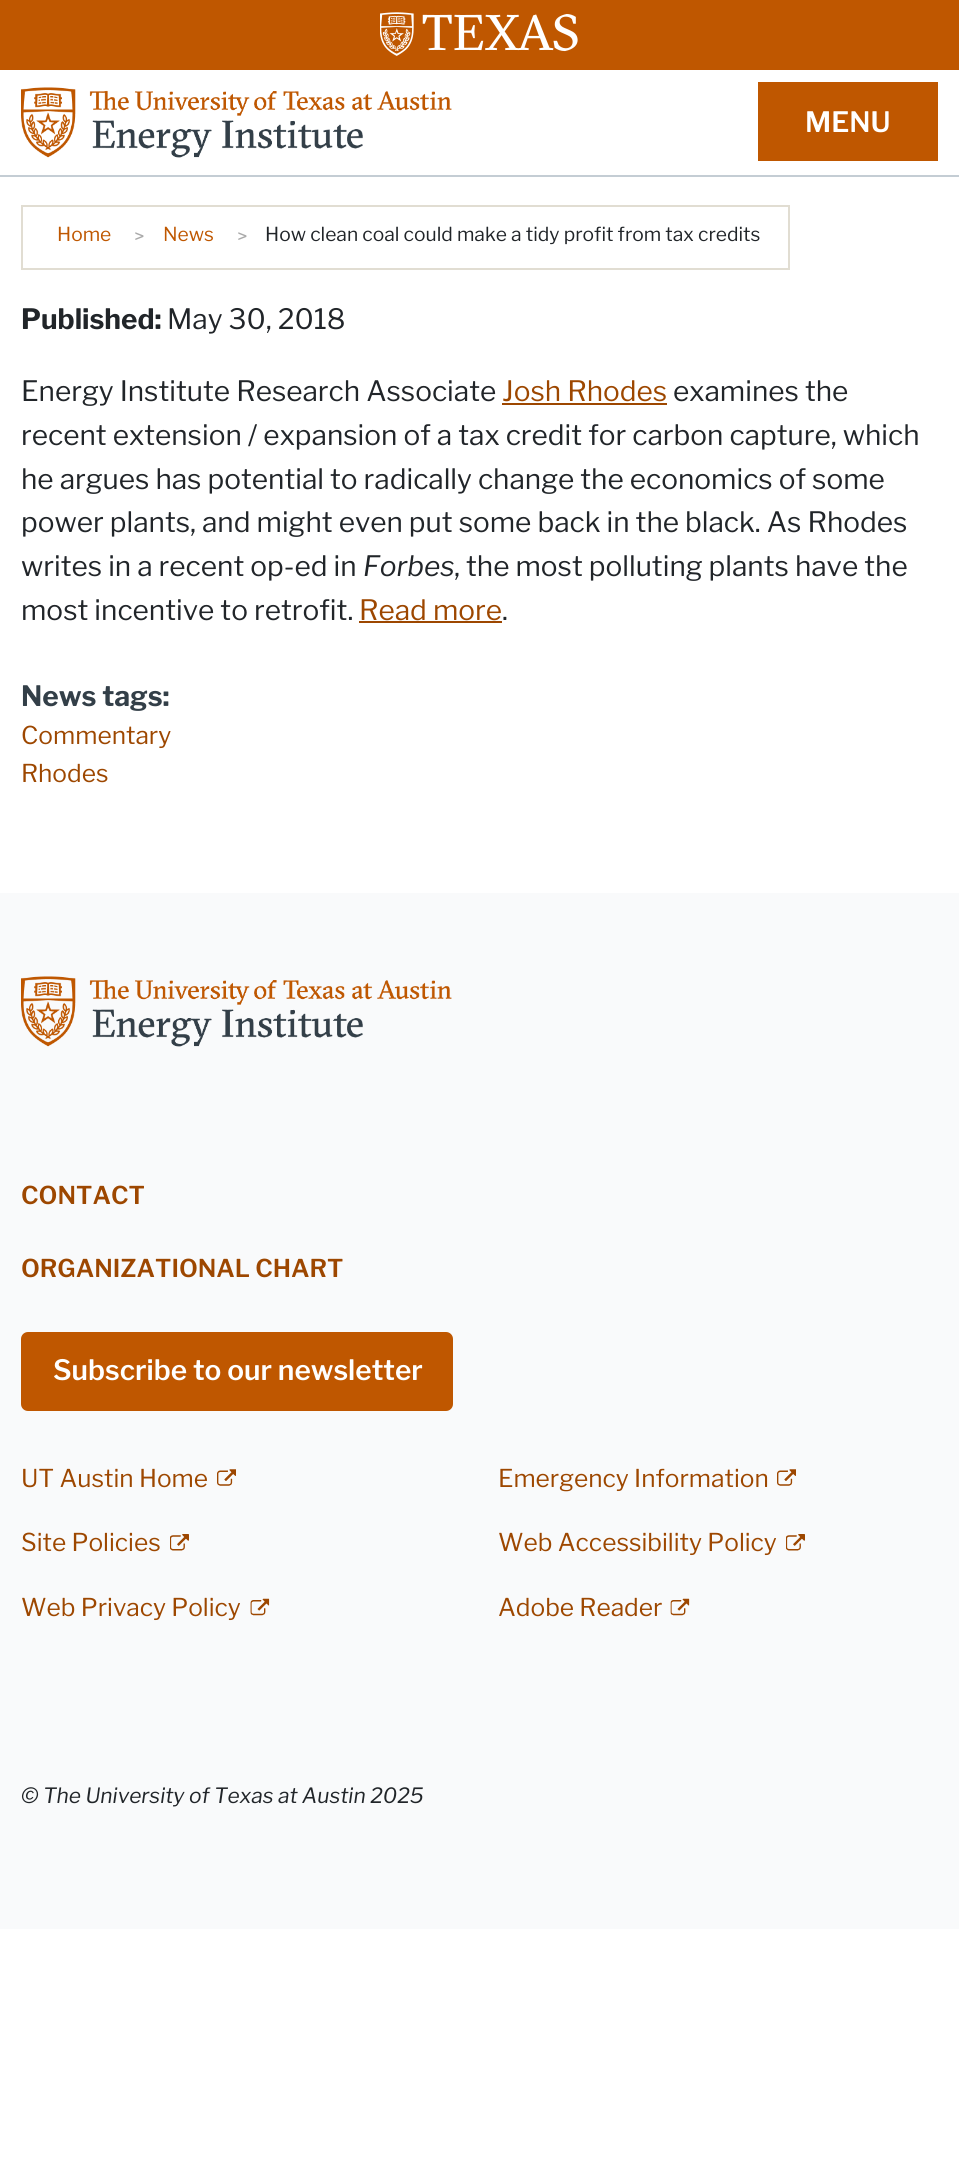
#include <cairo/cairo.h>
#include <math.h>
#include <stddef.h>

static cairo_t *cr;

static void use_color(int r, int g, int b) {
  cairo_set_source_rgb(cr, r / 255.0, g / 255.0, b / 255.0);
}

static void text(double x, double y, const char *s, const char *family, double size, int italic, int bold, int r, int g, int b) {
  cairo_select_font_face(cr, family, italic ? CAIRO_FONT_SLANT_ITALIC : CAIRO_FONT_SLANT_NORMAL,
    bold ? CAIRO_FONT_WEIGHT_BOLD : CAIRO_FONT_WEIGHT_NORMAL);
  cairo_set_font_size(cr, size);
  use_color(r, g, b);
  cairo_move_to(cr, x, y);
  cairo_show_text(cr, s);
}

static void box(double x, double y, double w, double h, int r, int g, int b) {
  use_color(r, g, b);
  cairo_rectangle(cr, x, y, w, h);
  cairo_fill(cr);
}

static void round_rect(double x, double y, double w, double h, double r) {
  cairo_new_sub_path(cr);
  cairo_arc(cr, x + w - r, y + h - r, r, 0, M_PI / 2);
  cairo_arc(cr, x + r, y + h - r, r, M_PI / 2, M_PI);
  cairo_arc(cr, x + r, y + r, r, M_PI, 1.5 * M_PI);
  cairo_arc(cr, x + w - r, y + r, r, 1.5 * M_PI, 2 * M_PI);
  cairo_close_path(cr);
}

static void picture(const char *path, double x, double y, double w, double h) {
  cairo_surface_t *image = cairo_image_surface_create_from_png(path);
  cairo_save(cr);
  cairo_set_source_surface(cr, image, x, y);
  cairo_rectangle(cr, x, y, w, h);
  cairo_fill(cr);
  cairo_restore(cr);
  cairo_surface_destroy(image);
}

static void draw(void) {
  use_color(255, 255, 255);
  cairo_paint(cr);
  box(0, 0, 959, 70, 191, 87, 0);
  picture("img_01.png", 380, 12, 198, 44);
  box(0, 175, 959, 2, 196, 205, 212);
  picture("img_02.png", 21, 87, 431, 71);
  box(758, 82, 180, 79, 191, 87, 0);
  box(21, 205, 768, 2, 225, 221, 210);
  box(21, 268, 193, 2, 225, 221, 210);
  box(21, 205, 2, 65, 225, 221, 210);
  box(788, 205, 2, 65, 225, 221, 210);
  box(214, 268, 575, 2, 225, 221, 210);
  box(502, 403, 165, 2, 157, 71, 0);
  box(359, 621, 143, 2, 157, 71, 0);
  box(0, 893, 959, 1036, 249, 250, 251);
  picture("img_03.png", 21, 976, 431, 71);
  use_color(191, 87, 0);
  round_rect(23, 1334, 428, 75, 5);
  cairo_fill_preserve(cr);
  cairo_set_line_width(cr, 4);
  cairo_stroke(cr);
  picture("img_04.png", 217, 1469, 19, 17);
  picture("img_04.png", 777, 1469, 19, 17);
  picture("img_05.png", 170, 1534, 19, 17);
  picture("img_05.png", 786, 1534, 19, 17);
  picture("img_06.png", 250, 1598, 20, 18);
  picture("img_07.png", 670, 1598, 20, 18);
  text(805, 132, "MENU", "Libre Franklin SemiBold", 28, 0, 0, 255, 255, 255);
  text(57, 241, "Home", "Libre Franklin", 19.25, 0, 0, 191, 87, 0);
  text(134, 243, ">", "Libre Franklin", 19.25, 0, 0, 170, 170, 170);
  text(163, 241, "News", "Libre Franklin", 19.25, 0, 0, 191, 87, 0);
  text(237, 243, ">", "Libre Franklin", 19.25, 0, 0, 170, 170, 170);
  text(265, 241, "How clean coal could make a tidy profit from tax credits", "Libre Franklin", 19.25, 0, 0, 33, 37, 41);
  text(21, 329, "Published:", "Libre Franklin", 28, 0, 1, 33, 37, 41);
  text(167, 329, "May 30, 2018", "Libre Franklin", 28, 0, 0, 33, 37, 41);
  text(21, 401, "Energy Institute Research Associate", "Libre Franklin", 28, 0, 0, 33, 37, 41);
  text(502, 401, "Josh Rhodes", "Libre Franklin", 28, 0, 0, 157, 71, 0);
  text(673, 401, "examines the", "Libre Franklin", 28, 0, 0, 33, 37, 41);
  text(21, 445, "recent extension / expansion of a tax credit for carbon capture, which", "Libre Franklin", 28, 0, 0, 33, 37, 41);
  text(21, 489, "he argues has potential to radically change the economics of some", "Libre Franklin", 28, 0, 0, 33, 37, 41);
  text(21, 532, "power plants, and might even put some back in the black. As Rhodes", "Libre Franklin", 28, 0, 0, 33, 37, 41);
  text(21, 576, "writes in a recent op-ed in", "Libre Franklin", 28, 0, 0, 33, 37, 41);
  text(363, 576, "Forbes", "Libre Franklin", 28, 1, 0, 33, 37, 41);
  text(454, 576, ", the most polluting plants have the", "Libre Franklin", 28, 0, 0, 33, 37, 41);
  text(21, 620, "most incentive to retrofit.", "Libre Franklin", 28, 0, 0, 33, 37, 41);
  text(359, 620, "Read more", "Libre Franklin", 28, 0, 0, 157, 71, 0);
  text(502, 620, ".", "Libre Franklin", 28, 0, 0, 33, 37, 41);
  text(21, 706, "News tags:", "Libre Franklin", 28, 0, 1, 51, 63, 72);
  text(21, 744, "Commentary", "Libre Franklin", 24.5, 0, 0, 157, 71, 0);
  text(21, 782, "Rhodes", "Libre Franklin", 24.5, 0, 0, 157, 71, 0);
  text(21, 1204, "CONTACT", "Libre Franklin SemiBold", 24.5, 0, 0, 157, 71, 0);
  text(21, 1277, "ORGANIZATIONAL CHART", "Libre Franklin SemiBold", 24.5, 0, 0, 157, 71, 0);
  text(53, 1380, "Subscribe to our newsletter", "Libre Franklin SemiBold", 28, 0, 0, 255, 255, 255);
  text(21, 1487, "UT Austin Home", "Libre Franklin", 24.5, 0, 0, 157, 71, 0);
  text(498, 1487, "Emergency Information", "Libre Franklin", 24.5, 0, 0, 157, 71, 0);
  text(21, 1551, "Site Policies", "Libre Franklin", 24.5, 0, 0, 157, 71, 0);
  text(498, 1551, "Web Accessibility Policy", "Libre Franklin", 24.5, 0, 0, 157, 71, 0);
  text(21, 1616, "Web Privacy Policy", "Libre Franklin", 24.5, 0, 0, 157, 71, 0);
  text(498, 1616, "Adobe Reader", "Libre Franklin", 24.5, 0, 0, 157, 71, 0);
  text(21, 1803, "© The University of Texas at Austin 2025", "Libre Franklin", 21, 1, 0, 33, 37, 41);
}

int main(void) {
  cairo_surface_t *surface = cairo_image_surface_create(CAIRO_FORMAT_RGB24, 959, 2180);
  cr = cairo_create(surface);
  cairo_font_options_t *options = cairo_font_options_create();
  cairo_font_options_set_hint_metrics(options, CAIRO_HINT_METRICS_OFF);
  cairo_font_options_set_hint_style(options, CAIRO_HINT_STYLE_NONE);
  cairo_set_font_options(cr, options);
  cairo_set_miter_limit(cr, 4);
  draw();
  cairo_surface_write_to_png(surface, "out.png");
  cairo_font_options_destroy(options);
  cairo_destroy(cr);
  cairo_surface_destroy(surface);
  return 0;
}
